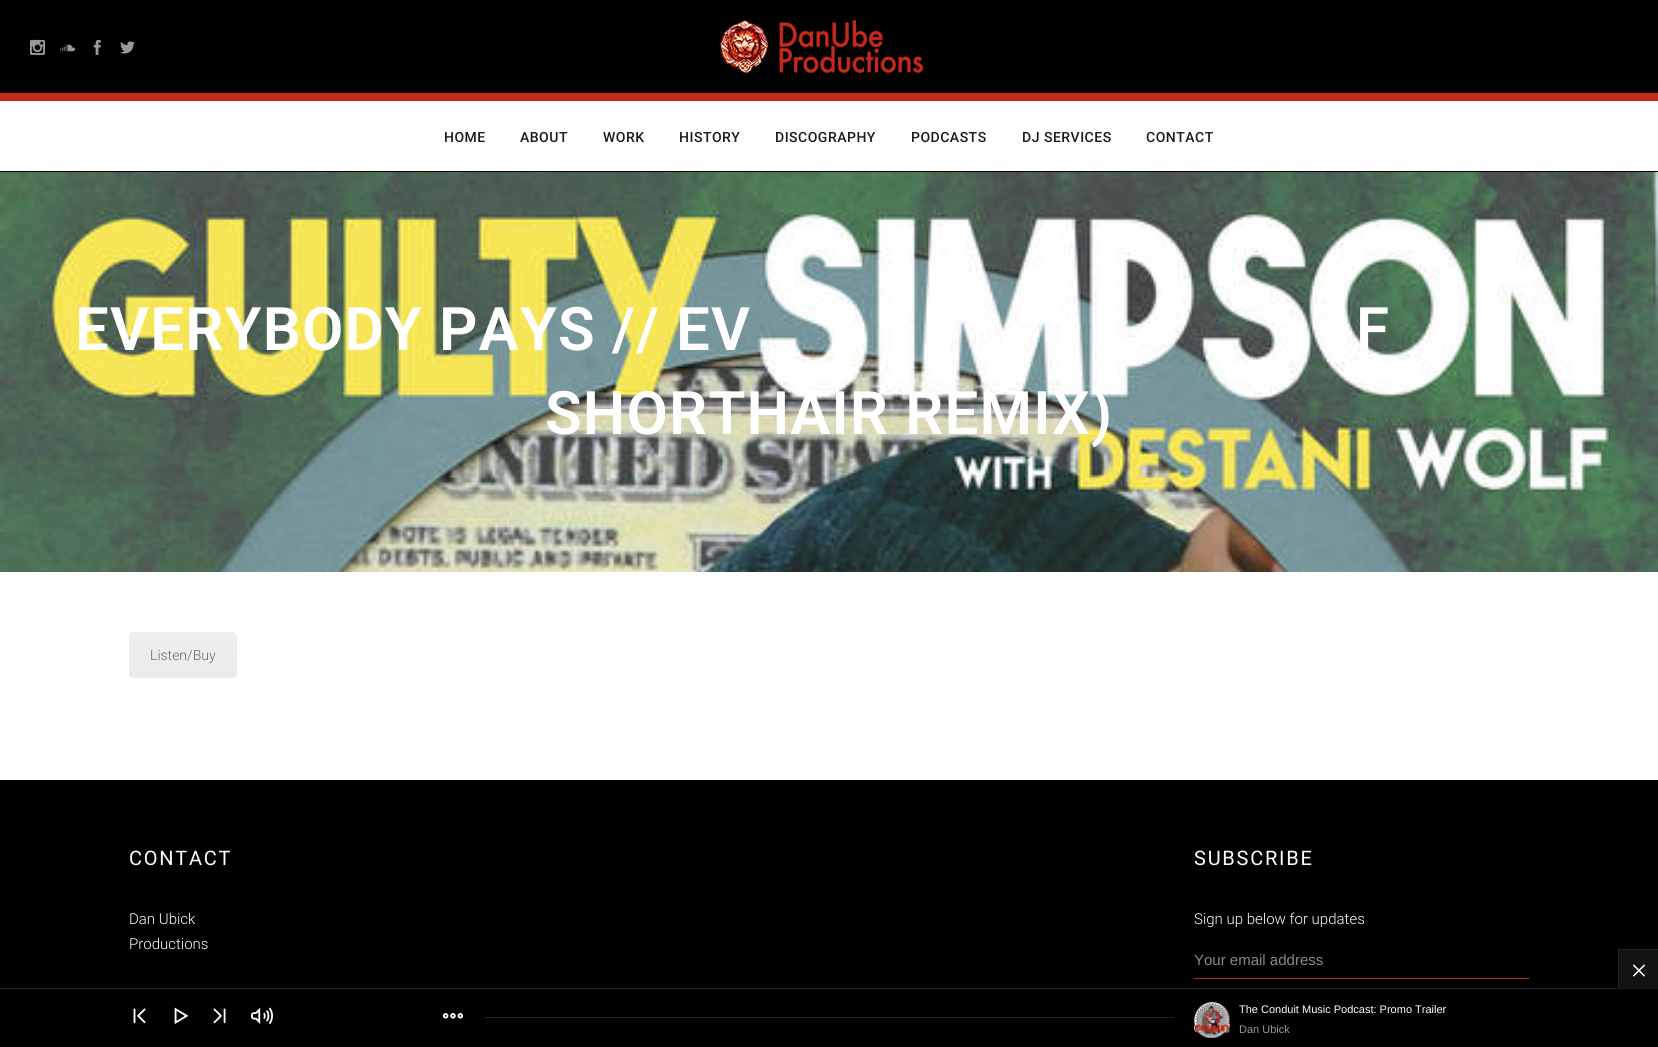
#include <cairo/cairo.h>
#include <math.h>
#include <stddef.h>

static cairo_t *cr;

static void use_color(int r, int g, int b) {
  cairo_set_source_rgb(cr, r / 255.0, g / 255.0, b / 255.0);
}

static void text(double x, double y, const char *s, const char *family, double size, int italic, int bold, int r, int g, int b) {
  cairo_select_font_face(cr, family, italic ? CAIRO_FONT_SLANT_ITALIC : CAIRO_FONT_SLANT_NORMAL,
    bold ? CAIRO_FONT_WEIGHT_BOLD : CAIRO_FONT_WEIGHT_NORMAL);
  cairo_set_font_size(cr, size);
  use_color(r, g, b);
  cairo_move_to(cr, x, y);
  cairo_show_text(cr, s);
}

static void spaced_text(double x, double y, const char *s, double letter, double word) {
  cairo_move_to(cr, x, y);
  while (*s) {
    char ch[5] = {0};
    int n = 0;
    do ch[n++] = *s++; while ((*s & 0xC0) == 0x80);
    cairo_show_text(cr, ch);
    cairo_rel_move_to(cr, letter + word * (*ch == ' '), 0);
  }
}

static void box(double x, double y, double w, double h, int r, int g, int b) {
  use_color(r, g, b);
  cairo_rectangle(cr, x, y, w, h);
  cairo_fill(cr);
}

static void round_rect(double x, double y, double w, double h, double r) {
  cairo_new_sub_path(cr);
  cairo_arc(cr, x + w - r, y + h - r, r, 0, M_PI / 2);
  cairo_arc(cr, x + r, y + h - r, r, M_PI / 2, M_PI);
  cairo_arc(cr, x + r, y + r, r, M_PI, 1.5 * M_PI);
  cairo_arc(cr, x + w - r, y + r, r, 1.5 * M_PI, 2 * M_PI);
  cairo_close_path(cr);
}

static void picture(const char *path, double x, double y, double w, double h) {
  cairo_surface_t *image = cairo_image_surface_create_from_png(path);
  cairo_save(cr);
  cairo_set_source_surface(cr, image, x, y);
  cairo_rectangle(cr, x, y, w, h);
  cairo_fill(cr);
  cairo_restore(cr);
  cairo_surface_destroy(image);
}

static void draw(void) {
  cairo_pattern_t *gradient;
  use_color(255, 255, 255);
  cairo_paint(cr);
  box(0, 0, 1658, 93, 0, 0, 0);
  picture("img_01.png", 30, 39, 15, 16);
  picture("img_02.png", 60, 44, 15, 8);
  picture("img_03.png", 93, 39, 8, 16);
  picture("img_04.png", 120, 41, 15, 13);
  picture("img_05.png", 720, 20, 203, 53);
  box(0, 93, 1658, 8, 198, 40, 25);
  box(0, 171, 1658, 1, 0, 0, 0);
  picture("img_06.png", 0, 172, 1658, 400);
  use_color(235, 235, 235);
  round_rect(129, 632, 108, 46, 5);
  cairo_fill(cr);
  cairo_save(cr);
  round_rect(129, 632, 108, 46, 5);
  cairo_clip(cr);
  gradient = cairo_pattern_create_linear(183, 633, 183, 677);
  cairo_pattern_add_color_stop_rgba(gradient, 0, 1, 1, 1, 0.2);
  cairo_pattern_add_color_stop_rgba(gradient, 1, 1, 1, 1, 0.01);
  cairo_set_source(cr, gradient);
  cairo_pattern_destroy(gradient);
  cairo_rectangle(cr, 129, 633, 108, 41);
  cairo_fill(cr);
  cairo_restore(cr);
  round_rect(129.5, 632.5, 107, 45, 4.5);
  cairo_set_line_width(cr, 1);
  cairo_stroke(cr);
  box(0, 780, 1658, 208, 0, 0, 0);
  box(1619, 950, 39, 38, 17, 18, 19);
  box(1194, 978, 335, 1, 198, 40, 25);
  box(1618, 949, 40, 1, 34, 34, 34);
  box(1618, 988, 40, 1, 21, 22, 22);
  box(1618, 949, 1, 40, 34, 34, 34);
  picture("img_07.png", 1633, 964, 12, 13);
  box(0, 989, 1658, 58, 0, 0, 0);
  box(0, 988, 1618, 1, 34, 34, 34);
  picture("img_08.png", 133, 1008, 13, 16);
  picture("img_09.png", 174, 1007, 15, 17);
  picture("img_10.png", 213, 1008, 13, 16);
  picture("img_11.png", 251, 1007, 22, 17);
  picture("img_12.png", 442, 1013, 22, 6);
  box(484, 1017, 690, 1, 34, 34, 34);
  picture("img_13.png", 1194, 1002, 36, 36);
  cairo_select_font_face(cr, "Roboto Medium", CAIRO_FONT_SLANT_NORMAL, CAIRO_FONT_WEIGHT_NORMAL);
  cairo_set_font_size(cr, 14);
  use_color(26, 27, 28);
  spaced_text(444, 142, "HOME", 0.5, 0);
  spaced_text(520, 142, "ABOUT", 0.5, 0);
  spaced_text(603, 142, "WORK", 0.5, 0);
  spaced_text(679, 142, "HISTORY", 0.5, 0);
  spaced_text(775, 142, "DISCOGRAPHY", 0.5, 0);
  spaced_text(911, 142, "PODCASTS", 0.5, 0);
  spaced_text(1022, 142, "DJ SERVICES", 0.5, 0);
  spaced_text(1146, 142, "CONTACT", 0.5, 0);
  cairo_select_font_face(cr, "Roboto SemiBold", CAIRO_FONT_SLANT_NORMAL, CAIRO_FONT_WEIGHT_NORMAL);
  cairo_set_font_size(cr, 60);
  use_color(255, 255, 255);
  spaced_text(75, 350, "EVERYBODY PAYS // EV", 1.2, 0);
  spaced_text(1356, 350, "F", 1.2, 0);
  spaced_text(545, 434, "SHORTHAIR REMIX)", 1.2, 0);
  text(150, 660, "Listen/Buy", "Roboto Light", 14, 0, 0, 102, 102, 102);
  cairo_select_font_face(cr, "Roboto", CAIRO_FONT_SLANT_NORMAL, CAIRO_FONT_WEIGHT_NORMAL);
  cairo_set_font_size(cr, 20);
  use_color(255, 255, 255);
  spaced_text(129, 865, "CONTACT", 1.75, 0);
  text(129, 924, "Dan Ubick", "Roboto Light", 15, 0, 0, 255, 255, 255);
  text(129, 949, "Productions", "Roboto Light", 15, 0, 0, 255, 255, 255);
  cairo_select_font_face(cr, "Roboto", CAIRO_FONT_SLANT_NORMAL, CAIRO_FONT_WEIGHT_NORMAL);
  cairo_set_font_size(cr, 20);
  spaced_text(1194, 865, "SUBSCRIBE", 1.75, 0);
  text(1194, 924, "Sign up below for updates", "Roboto Light", 15, 0, 0, 255, 255, 255);
  text(1194, 965, "Your email address", "Liberation Sans", 15, 0, 0, 136, 136, 136);
  text(1239, 1013, "The Conduit Music Podcast: Promo Trailer", "Liberation Sans", 11, 0, 0, 255, 255, 255);
  text(1239, 1033, "Dan Ubick", "Liberation Sans", 11, 0, 0, 153, 153, 153);
}

int main(void) {
  cairo_surface_t *surface = cairo_image_surface_create(CAIRO_FORMAT_RGB24, 1658, 1047);
  cr = cairo_create(surface);
  cairo_font_options_t *options = cairo_font_options_create();
  cairo_font_options_set_hint_metrics(options, CAIRO_HINT_METRICS_OFF);
  cairo_font_options_set_hint_style(options, CAIRO_HINT_STYLE_NONE);
  cairo_set_font_options(cr, options);
  cairo_set_miter_limit(cr, 4);
  draw();
  cairo_surface_write_to_png(surface, "out.png");
  cairo_font_options_destroy(options);
  cairo_destroy(cr);
  cairo_surface_destroy(surface);
  return 0;
}
